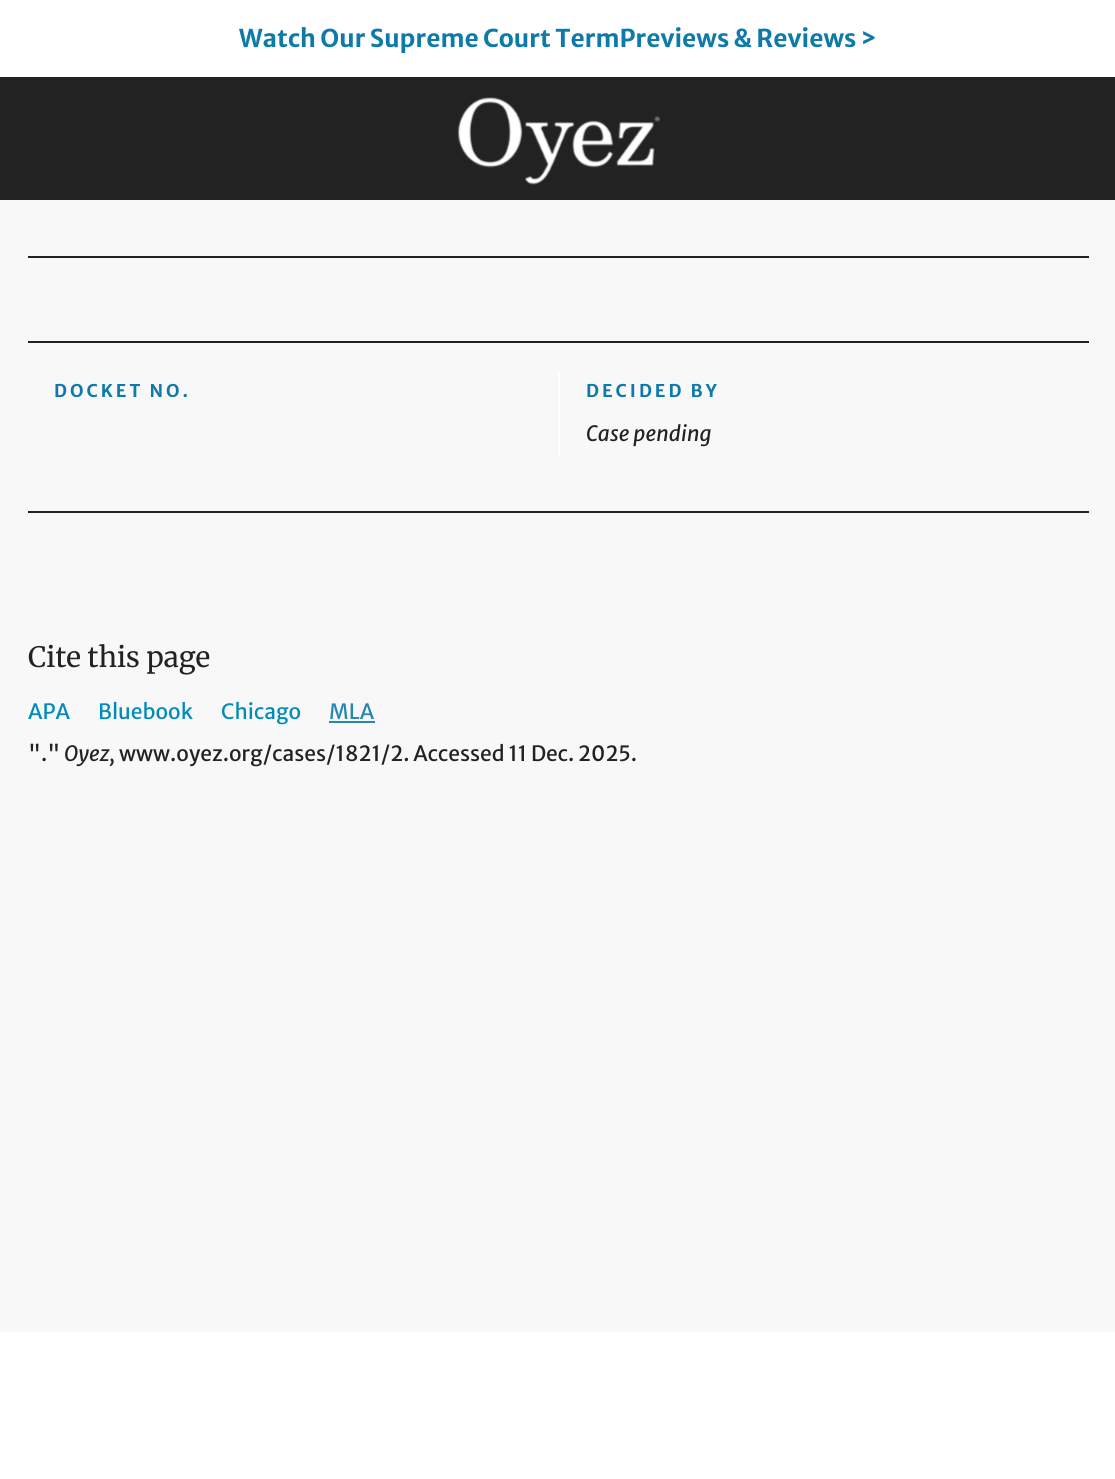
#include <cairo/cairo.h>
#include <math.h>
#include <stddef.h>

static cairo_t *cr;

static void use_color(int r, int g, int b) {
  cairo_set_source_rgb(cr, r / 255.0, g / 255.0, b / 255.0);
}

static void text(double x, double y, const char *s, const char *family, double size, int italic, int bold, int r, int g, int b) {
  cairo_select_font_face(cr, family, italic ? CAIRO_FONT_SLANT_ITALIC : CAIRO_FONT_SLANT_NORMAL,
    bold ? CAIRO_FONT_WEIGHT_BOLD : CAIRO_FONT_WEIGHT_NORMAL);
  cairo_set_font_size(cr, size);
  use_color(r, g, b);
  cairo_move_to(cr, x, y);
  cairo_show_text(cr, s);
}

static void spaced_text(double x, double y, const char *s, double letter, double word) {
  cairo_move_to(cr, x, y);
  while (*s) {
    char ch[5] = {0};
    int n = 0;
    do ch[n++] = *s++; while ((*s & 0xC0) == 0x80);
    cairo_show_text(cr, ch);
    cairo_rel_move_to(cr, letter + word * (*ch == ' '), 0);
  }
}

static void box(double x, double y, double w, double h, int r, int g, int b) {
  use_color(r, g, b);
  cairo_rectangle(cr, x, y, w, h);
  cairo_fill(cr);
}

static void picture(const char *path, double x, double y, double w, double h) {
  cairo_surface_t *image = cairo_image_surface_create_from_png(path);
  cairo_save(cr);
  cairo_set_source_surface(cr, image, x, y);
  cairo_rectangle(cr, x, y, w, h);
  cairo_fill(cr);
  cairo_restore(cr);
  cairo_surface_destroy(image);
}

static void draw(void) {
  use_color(248, 248, 248);
  cairo_paint(cr);
  box(0, 0, 1115, 77, 255, 255, 255);
  box(0, 77, 1115, 123, 34, 34, 34);
  picture("img_01.png", 457, 97, 203, 88);
  box(28, 256, 1061, 2, 34, 34, 34);
  box(28, 341, 1061, 2, 34, 34, 34);
  box(558, 371, 2, 84, 255, 255, 255);
  box(28, 511, 1061, 2, 34, 34, 34);
  box(329, 721, 46, 2, 37, 135, 178);
  box(0, 1332, 1115, 147, 255, 255, 255);
  text(239, 47, "Watch Our Supreme Court TermPreviews & Reviews >", "Merriweather Sans", 24.5, 0, 1, 14, 122, 170);
  cairo_set_font_size(cr, 17.5);
  spaced_text(54, 397, "DOCKET NO.", 3, 0);
  spaced_text(586, 397, "DECIDED BY", 3, 0);
  text(586, 441, "Case pending", "Merriweather Sans", 21, 1, 0, 34, 34, 34);
  text(28, 667, "Cite this page", "Merriweather", 28, 0, 0, 34, 34, 34);
  text(28, 719, "APA", "Merriweather Sans", 21, 0, 0, 0, 140, 186);
  text(98, 719, "Bluebook", "Merriweather Sans", 21, 0, 0, 0, 140, 186);
  text(221, 719, "Chicago", "Merriweather Sans", 21, 0, 0, 0, 140, 186);
  text(329, 719, "MLA", "Merriweather Sans", 21, 0, 0, 37, 135, 178);
  text(28, 761, "\".\"", "Merriweather Sans", 21, 0, 0, 34, 34, 34);
  text(64, 761, "Oyez,", "Merriweather Sans", 21, 1, 0, 34, 34, 34);
  text(119, 761, "www.oyez.org/cases/1821/2. Accessed 11 Dec. 2025.", "Merriweather Sans", 21, 0, 0, 34, 34, 34);
}

int main(void) {
  cairo_surface_t *surface = cairo_image_surface_create(CAIRO_FORMAT_RGB24, 1115, 1479);
  cr = cairo_create(surface);
  cairo_font_options_t *options = cairo_font_options_create();
  cairo_font_options_set_hint_metrics(options, CAIRO_HINT_METRICS_OFF);
  cairo_font_options_set_hint_style(options, CAIRO_HINT_STYLE_NONE);
  cairo_set_font_options(cr, options);
  cairo_set_miter_limit(cr, 4);
  draw();
  cairo_surface_write_to_png(surface, "out.png");
  cairo_font_options_destroy(options);
  cairo_destroy(cr);
  cairo_surface_destroy(surface);
  return 0;
}
